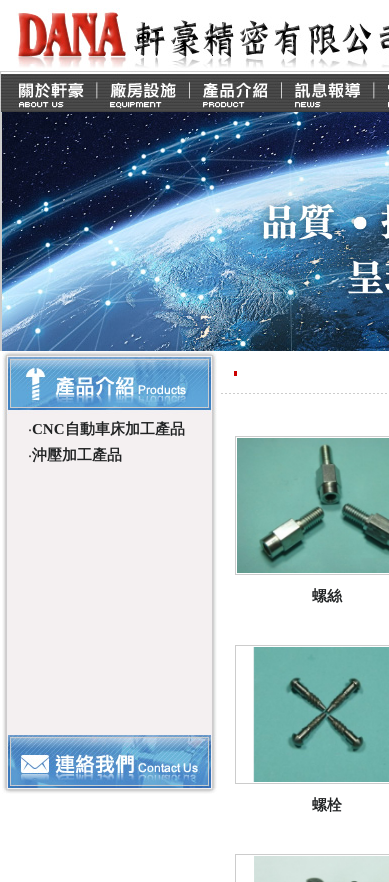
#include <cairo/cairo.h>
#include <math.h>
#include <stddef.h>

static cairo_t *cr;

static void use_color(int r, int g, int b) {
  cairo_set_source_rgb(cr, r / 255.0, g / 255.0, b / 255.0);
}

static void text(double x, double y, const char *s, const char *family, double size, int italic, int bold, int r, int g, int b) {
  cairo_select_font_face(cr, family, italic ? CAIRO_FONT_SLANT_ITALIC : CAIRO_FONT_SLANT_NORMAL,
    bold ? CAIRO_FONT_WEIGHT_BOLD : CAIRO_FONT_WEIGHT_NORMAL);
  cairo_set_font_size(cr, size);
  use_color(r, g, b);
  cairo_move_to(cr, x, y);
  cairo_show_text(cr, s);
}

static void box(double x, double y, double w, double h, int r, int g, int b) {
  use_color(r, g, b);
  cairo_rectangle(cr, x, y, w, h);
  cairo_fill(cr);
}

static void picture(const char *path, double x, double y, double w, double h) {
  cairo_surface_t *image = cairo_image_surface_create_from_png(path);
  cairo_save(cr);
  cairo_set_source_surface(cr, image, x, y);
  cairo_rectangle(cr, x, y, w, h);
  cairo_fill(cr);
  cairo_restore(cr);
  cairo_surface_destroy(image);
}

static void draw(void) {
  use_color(255, 255, 255);
  cairo_paint(cr);
  picture("img_01.png", 0, 8, 389, 63);
  picture("img_11.png", 1, 71, 388, 280);
  picture("img_02.png", 0, 71, 12, 41);
  picture("img_03.png", 12, 79, 78, 33);
  picture("img_04.png", 90, 81, 14, 31);
  picture("img_05.png", 104, 79, 78, 33);
  picture("img_06.png", 182, 80, 14, 32);
  picture("img_07.png", 196, 79, 78, 33);
  picture("img_06.png", 274, 80, 14, 32);
  picture("img_08.png", 288, 79, 78, 33);
  picture("img_09.png", 366, 81, 16, 31);
  picture("img_10.png", 382, 79, 7, 33);
  box(0, 112, 1, 239, 204, 204, 204);
  picture("img_12.png", 2, 351, 215, 64);
  picture("img_13.png", 2, 415, 215, 373);
  picture("img_14.png", 4, 735, 212, 53);
  picture("img_15.png", 2, 788, 215, 6);
  picture("img_16.png", 221, 393, 166, 1);
  box(234, 371, 3, 5, 204, 0, 0);
  cairo_rectangle(cr, 235.5, 436.5, 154, 138);
  use_color(204, 204, 204);
  cairo_set_line_width(cr, 1);
  cairo_stroke(cr);
  picture("img_17.png", 237, 438, 152, 135);
  cairo_rectangle(cr, 235.5, 645.5, 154, 138);
  cairo_stroke(cr);
  picture("img_18.png", 253, 647, 136, 135);
  cairo_rectangle(cr, 235.5, 854.5, 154, 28);
  cairo_stroke(cr);
  picture("img_19.png", 254, 856, 135, 26);
  text(28, 434, "‧", "Noto Sans", 15, 0, 0, 61, 60, 60);
  text(32, 434, "CNC", "Liberation Serif", 15, 0, 1, 32, 34, 35);
  text(65, 434, "自動車床加工產品", "WenQuanYi Zen Hei", 15, 0, 1, 32, 34, 35);
  text(28, 460, "‧", "Noto Sans", 15, 0, 0, 61, 60, 60);
  text(32, 460, "沖壓加工產品", "WenQuanYi Zen Hei", 15, 0, 1, 32, 34, 35);
  text(312, 601, "螺絲", "WenQuanYi Zen Hei", 15, 0, 1, 32, 34, 35);
  text(312, 810, "螺栓", "WenQuanYi Zen Hei", 15, 0, 1, 32, 34, 35);
}

int main(void) {
  cairo_surface_t *surface = cairo_image_surface_create(CAIRO_FORMAT_RGB24, 389, 882);
  cr = cairo_create(surface);
  cairo_font_options_t *options = cairo_font_options_create();
  cairo_font_options_set_hint_metrics(options, CAIRO_HINT_METRICS_OFF);
  cairo_font_options_set_hint_style(options, CAIRO_HINT_STYLE_NONE);
  cairo_set_font_options(cr, options);
  cairo_set_miter_limit(cr, 4);
  draw();
  cairo_surface_write_to_png(surface, "out.png");
  cairo_font_options_destroy(options);
  cairo_destroy(cr);
  cairo_surface_destroy(surface);
  return 0;
}
